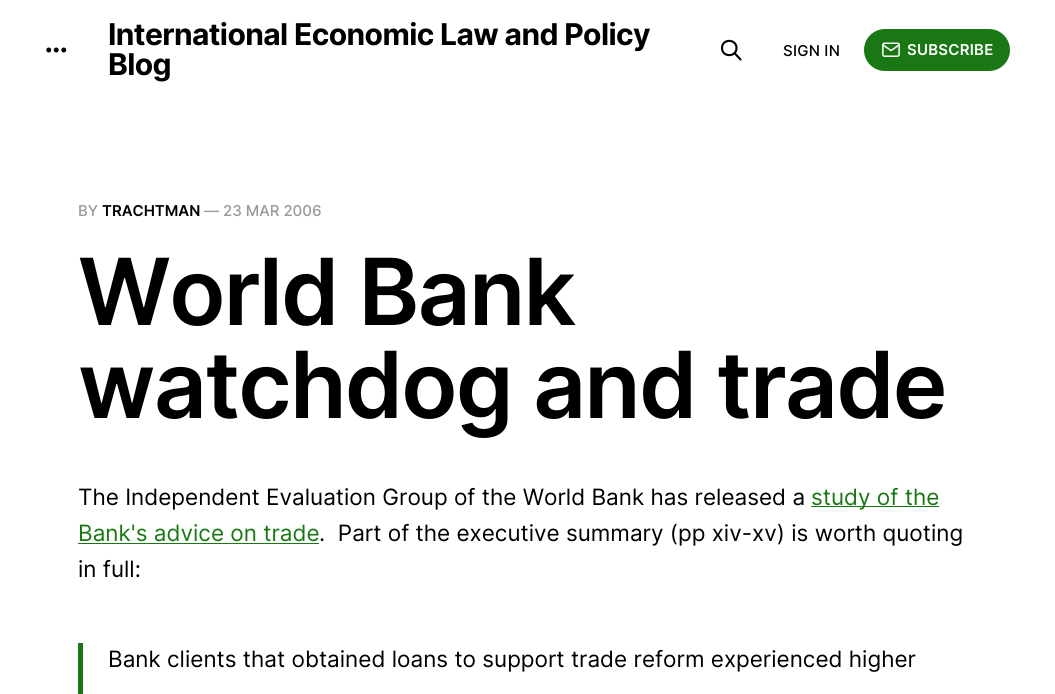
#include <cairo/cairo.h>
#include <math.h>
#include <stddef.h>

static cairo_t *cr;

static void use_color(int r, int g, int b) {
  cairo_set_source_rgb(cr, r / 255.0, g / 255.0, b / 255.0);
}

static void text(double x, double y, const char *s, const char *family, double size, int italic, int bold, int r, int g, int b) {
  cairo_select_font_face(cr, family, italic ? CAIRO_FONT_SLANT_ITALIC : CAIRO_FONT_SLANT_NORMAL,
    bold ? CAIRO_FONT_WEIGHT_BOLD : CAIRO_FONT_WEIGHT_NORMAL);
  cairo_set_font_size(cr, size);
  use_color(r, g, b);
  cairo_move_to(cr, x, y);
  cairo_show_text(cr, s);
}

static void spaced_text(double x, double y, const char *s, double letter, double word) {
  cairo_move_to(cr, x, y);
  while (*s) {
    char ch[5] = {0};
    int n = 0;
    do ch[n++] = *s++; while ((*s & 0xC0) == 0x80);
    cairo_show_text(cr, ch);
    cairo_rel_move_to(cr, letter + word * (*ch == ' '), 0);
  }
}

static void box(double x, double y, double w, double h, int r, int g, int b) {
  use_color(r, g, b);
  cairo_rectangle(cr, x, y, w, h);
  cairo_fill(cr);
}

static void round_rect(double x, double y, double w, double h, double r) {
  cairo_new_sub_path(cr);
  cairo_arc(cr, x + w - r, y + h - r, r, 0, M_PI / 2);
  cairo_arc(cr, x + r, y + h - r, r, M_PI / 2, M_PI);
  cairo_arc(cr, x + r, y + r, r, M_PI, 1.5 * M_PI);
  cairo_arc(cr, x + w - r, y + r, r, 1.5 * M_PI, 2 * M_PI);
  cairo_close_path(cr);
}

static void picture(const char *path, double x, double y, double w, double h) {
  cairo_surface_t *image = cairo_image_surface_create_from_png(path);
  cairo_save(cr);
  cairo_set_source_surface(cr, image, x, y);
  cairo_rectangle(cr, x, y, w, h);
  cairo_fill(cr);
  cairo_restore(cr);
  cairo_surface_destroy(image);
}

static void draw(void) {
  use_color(255, 255, 255);
  cairo_paint(cr);
  picture("img_01.png", 46, 47, 21, 6);
  cairo_new_path(cr);
  cairo_move_to(cr, 740.5, 59.5);
  cairo_line_to(cr, 734.5, 53);
  cairo_move_to(cr, 736.5, 48);
  cairo_curve_to(cr, 736.5, 57.5, 722, 57.5, 722, 48);
  cairo_curve_to(cr, 722, 38.5, 736.5, 38.5, 736.5, 48);
  cairo_close_path(cr);
  use_color(0, 0, 0);
  cairo_set_line_width(cr, 2.1);
  cairo_set_line_cap(cr, CAIRO_LINE_CAP_ROUND);
  cairo_set_line_join(cr, CAIRO_LINE_JOIN_ROUND);
  cairo_stroke(cr);
  use_color(25, 120, 19);
  round_rect(864, 29, 146, 42, 21);
  cairo_fill(cr);
  picture("img_02.png", 882, 42, 18, 15);
  box(811, 506, 128, 1, 25, 120, 19);
  box(78, 543, 241, 1, 25, 120, 19);
  box(78, 643, 5, 51, 25, 120, 19);
  cairo_select_font_face(cr, "Inter", CAIRO_FONT_SLANT_NORMAL, CAIRO_FONT_WEIGHT_BOLD);
  cairo_set_font_size(cr, 30);
  use_color(0, 0, 0);
  spaced_text(108, 45, "International Economic Law and Policy", -0.6, 0);
  spaced_text(108, 75, "Blog", -0.6, 0);
  cairo_select_font_face(cr, "Inter Medium", CAIRO_FONT_SLANT_NORMAL, CAIRO_FONT_WEIGHT_NORMAL);
  cairo_set_font_size(cr, 15);
  spaced_text(783, 56, "SIGN IN", 0.25, 0);
  cairo_select_font_face(cr, "Inter SemiBold", CAIRO_FONT_SLANT_NORMAL, CAIRO_FONT_WEIGHT_NORMAL);
  use_color(255, 255, 255);
  spaced_text(907, 55, "SUBSCRIBE", 0.25, 0);
  text(78, 216, "BY", "Inter Medium", 15, 0, 0, 153, 153, 153);
  text(102, 216, "TRACHTMAN", "Inter SemiBold", 15, 0, 0, 0, 0, 0);
  text(204, 216, "— 23 MAR 2006", "Inter Medium", 15, 0, 0, 153, 153, 153);
  cairo_select_font_face(cr, "Inter SemiBold", CAIRO_FONT_SLANT_NORMAL, CAIRO_FONT_WEIGHT_NORMAL);
  cairo_set_font_size(cr, 92.5);
  use_color(0, 0, 0);
  spaced_text(78, 325, "World Bank", -1.8, 0);
  spaced_text(78, 418, "watchdog and trade", -1.8, 0);
  text(78, 505, "The Independent Evaluation Group of the World Bank has released a", "Inter", 22.5, 0, 0, 0, 0, 0);
  text(811, 505, "study of the", "Inter", 22.5, 0, 0, 25, 120, 19);
  text(78, 541, "Bank's advice on trade", "Inter", 22.5, 0, 0, 25, 120, 19);
  text(319, 541, ".  Part of the executive summary (pp xiv-xv) is worth quoting", "Inter", 22.5, 0, 0, 0, 0, 0);
  text(78, 577, "in full:", "Inter", 22.5, 0, 0, 0, 0, 0);
  text(108, 667, "Bank clients that obtained loans to support trade reform experienced higher", "Inter", 22.5, 0, 0, 0, 0, 0);
}

int main(void) {
  cairo_surface_t *surface = cairo_image_surface_create(CAIRO_FORMAT_RGB24, 1055, 694);
  cr = cairo_create(surface);
  cairo_font_options_t *options = cairo_font_options_create();
  cairo_font_options_set_hint_metrics(options, CAIRO_HINT_METRICS_OFF);
  cairo_font_options_set_hint_style(options, CAIRO_HINT_STYLE_NONE);
  cairo_set_font_options(cr, options);
  cairo_set_miter_limit(cr, 4);
  draw();
  cairo_surface_write_to_png(surface, "out.png");
  cairo_font_options_destroy(options);
  cairo_destroy(cr);
  cairo_surface_destroy(surface);
  return 0;
}
